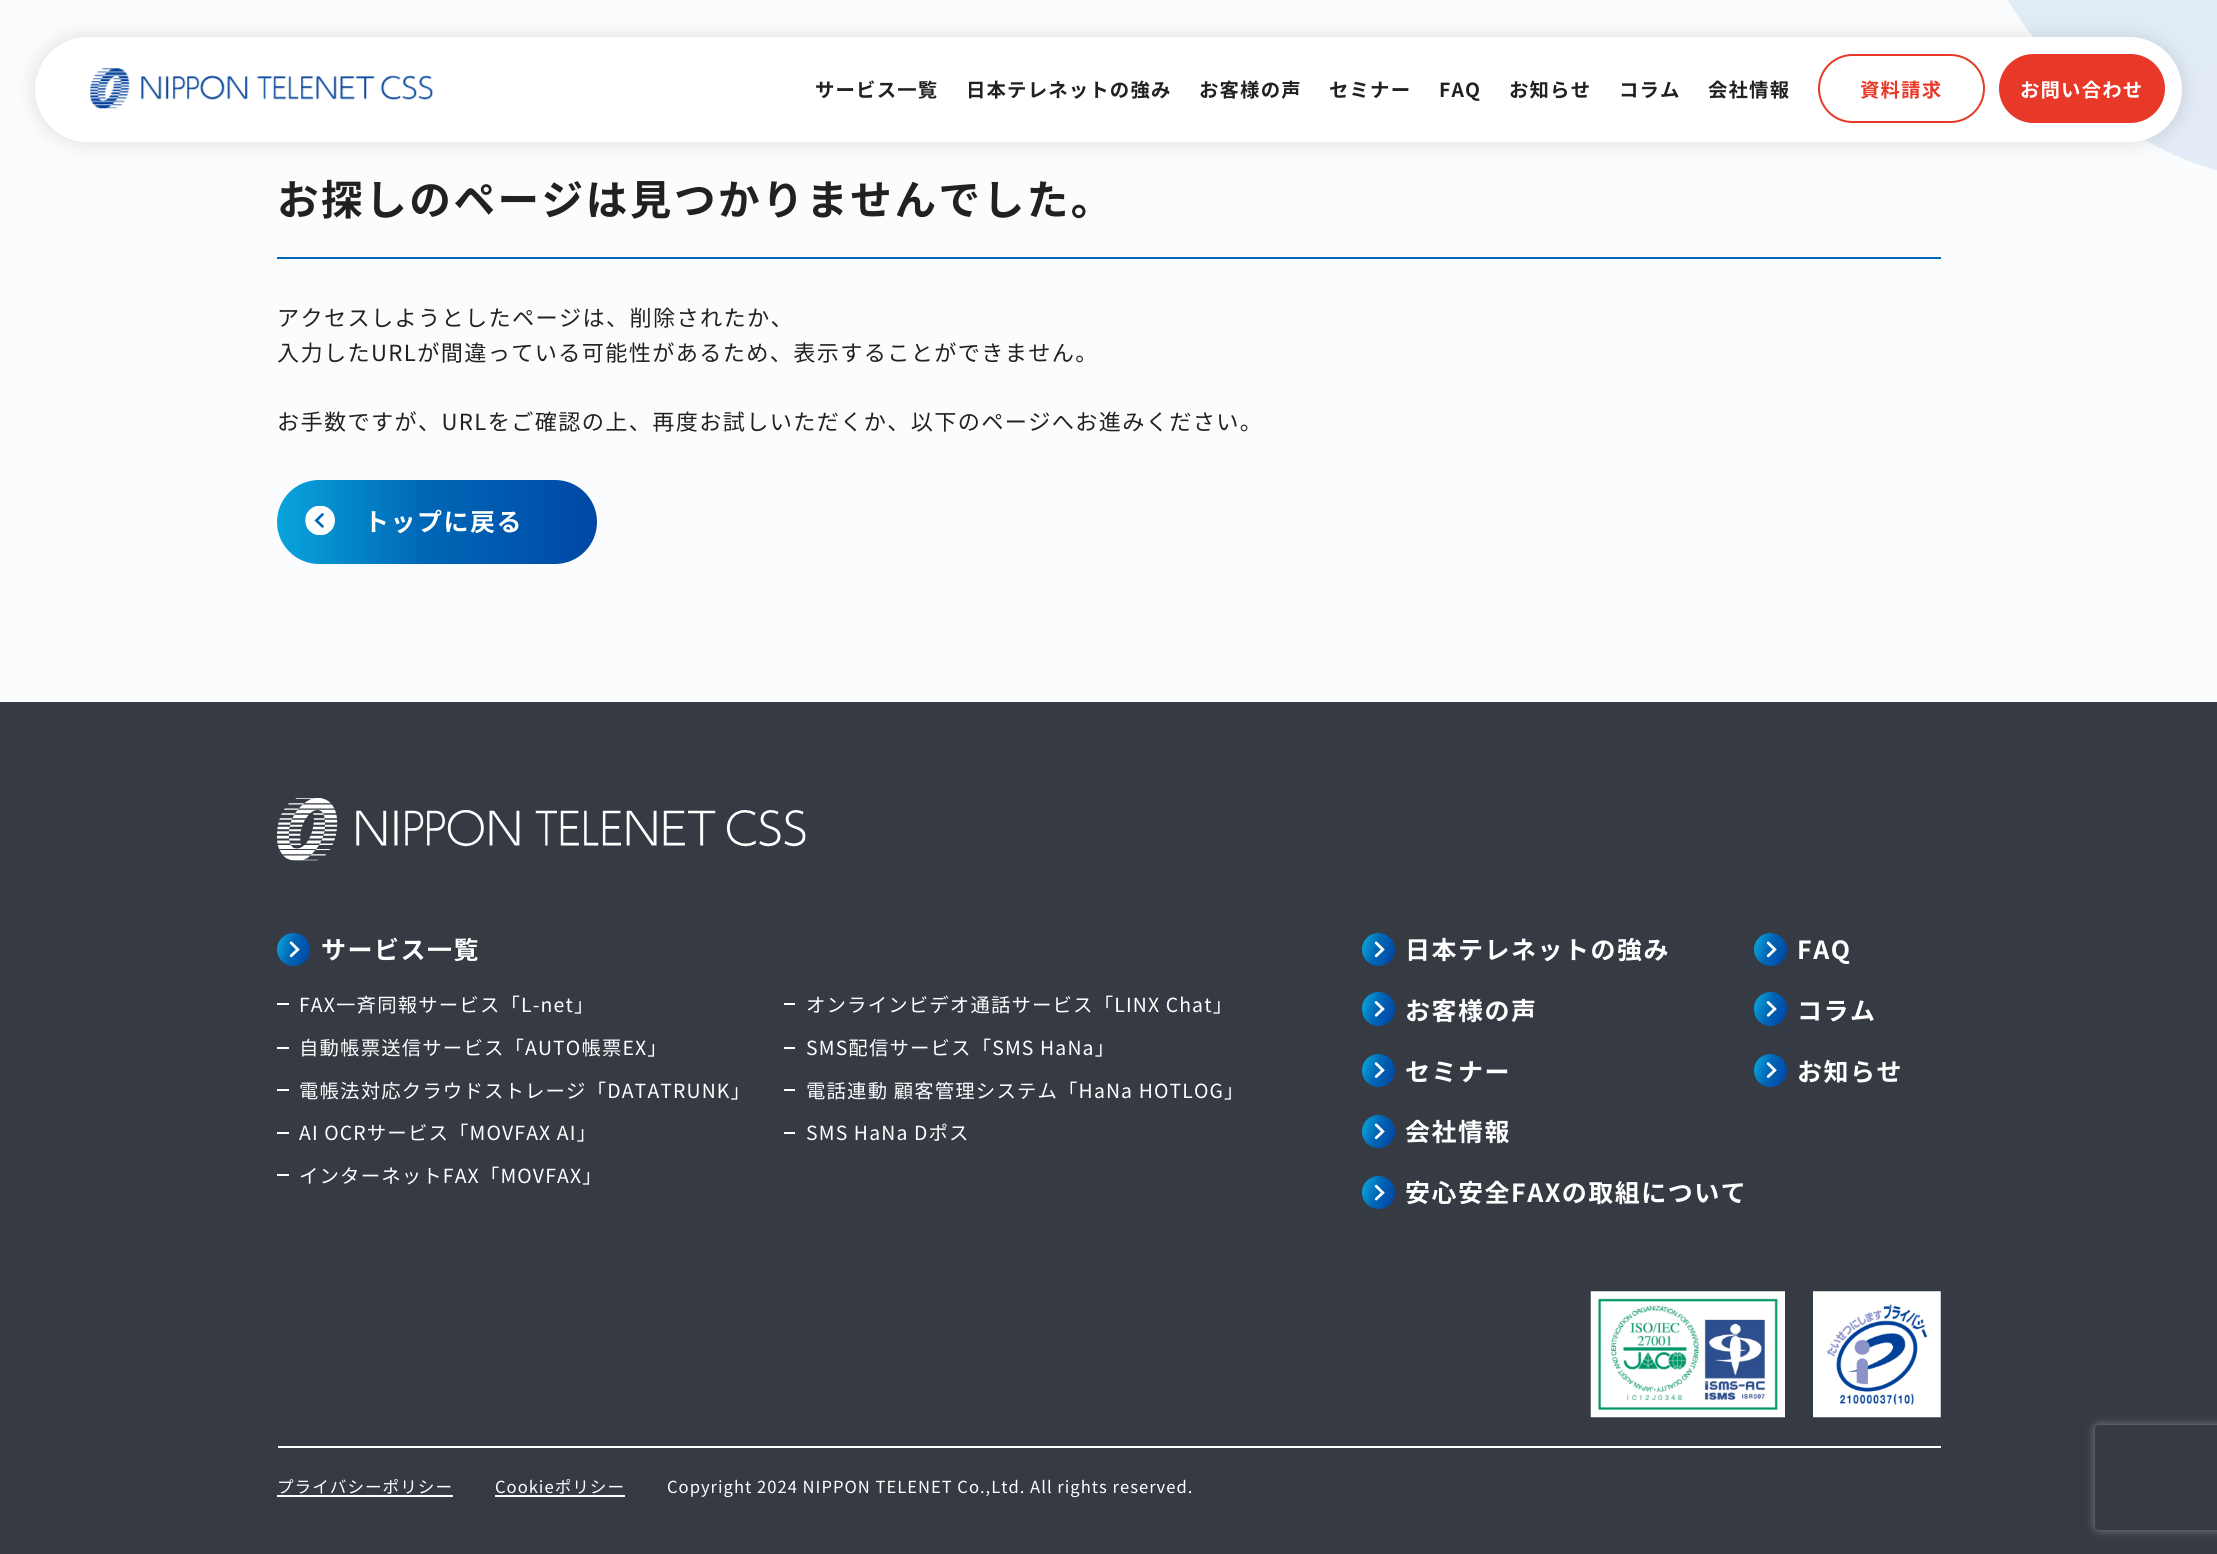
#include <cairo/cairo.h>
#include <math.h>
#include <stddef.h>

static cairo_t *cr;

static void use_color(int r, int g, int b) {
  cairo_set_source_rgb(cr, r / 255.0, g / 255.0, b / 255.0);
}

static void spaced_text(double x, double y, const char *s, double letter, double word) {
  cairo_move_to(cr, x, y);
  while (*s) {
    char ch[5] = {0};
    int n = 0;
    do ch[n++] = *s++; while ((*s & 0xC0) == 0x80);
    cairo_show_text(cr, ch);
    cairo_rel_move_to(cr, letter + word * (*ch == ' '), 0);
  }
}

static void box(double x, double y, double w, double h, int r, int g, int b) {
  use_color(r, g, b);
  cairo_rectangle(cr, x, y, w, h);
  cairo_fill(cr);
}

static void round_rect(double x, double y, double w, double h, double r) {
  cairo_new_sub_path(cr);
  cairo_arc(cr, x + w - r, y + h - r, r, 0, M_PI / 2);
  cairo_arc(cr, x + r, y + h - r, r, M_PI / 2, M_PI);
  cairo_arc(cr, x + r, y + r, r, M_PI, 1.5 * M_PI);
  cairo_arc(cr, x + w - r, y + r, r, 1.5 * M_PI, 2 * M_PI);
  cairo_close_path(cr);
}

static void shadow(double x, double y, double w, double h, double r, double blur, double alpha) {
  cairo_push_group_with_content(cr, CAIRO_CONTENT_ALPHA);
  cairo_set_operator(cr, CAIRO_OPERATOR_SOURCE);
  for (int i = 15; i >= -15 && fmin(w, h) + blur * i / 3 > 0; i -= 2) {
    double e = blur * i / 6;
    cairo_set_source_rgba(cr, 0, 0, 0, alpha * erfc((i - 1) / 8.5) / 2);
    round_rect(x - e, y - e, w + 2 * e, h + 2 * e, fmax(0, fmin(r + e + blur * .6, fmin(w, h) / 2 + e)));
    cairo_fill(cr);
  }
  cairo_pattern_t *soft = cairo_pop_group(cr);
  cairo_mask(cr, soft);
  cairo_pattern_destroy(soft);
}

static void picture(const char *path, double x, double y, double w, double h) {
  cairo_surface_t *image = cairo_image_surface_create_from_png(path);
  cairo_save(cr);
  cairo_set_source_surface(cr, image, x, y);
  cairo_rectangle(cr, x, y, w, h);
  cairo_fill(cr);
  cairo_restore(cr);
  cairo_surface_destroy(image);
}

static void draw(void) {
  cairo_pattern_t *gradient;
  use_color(251, 252, 254);
  cairo_paint(cr);
  gradient = cairo_pattern_create_linear(2179, -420, 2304, 235);
  cairo_pattern_add_color_stop_rgba(gradient, 0, 0.89, 0.953, 0.984, 1);
  cairo_pattern_add_color_stop_rgba(gradient, 0.46, 0.886, 0.929, 0.969, 1);
  cairo_pattern_add_color_stop_rgba(gradient, 1, 0.886, 0.918, 0.961, 1);
  cairo_set_source(cr, gradient);
  cairo_pattern_destroy(gradient);
  cairo_new_path(cr);
  cairo_move_to(cr, 1624, -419);
  cairo_curve_to(cr, 1686, -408, 1856, -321, 1921, -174);
  cairo_curve_to(cr, 1986, -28, 2069, 184, 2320, 184);
  cairo_curve_to(cr, 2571, 184, 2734, -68, 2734, -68);
  cairo_line_to(cr, 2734, -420);
  cairo_close_path(cr);
  cairo_fill(cr);
  use_color(0, 0, 0);
  shadow(35, 37, 2147, 105, 52.5, 11, 0.12);
  use_color(255, 255, 255);
  round_rect(35, 37, 2147, 105, 52.5);
  cairo_fill(cr);
  picture("img_01.png", 90, 68, 343, 41);
  round_rect(1819, 55, 165, 67, 33.5);
  use_color(231, 56, 40);
  cairo_stroke(cr);
  round_rect(2000, 55, 164, 67, 33.5);
  cairo_fill_preserve(cr);
  cairo_stroke(cr);
  box(277, 257, 1664, 2, 0, 103, 182);
  gradient = cairo_pattern_create_linear(277, 522, 597, 522);
  cairo_pattern_add_color_stop_rgba(gradient, 0, 0.035, 0.643, 0.863, 1);
  cairo_pattern_add_color_stop_rgba(gradient, 0.46, 0, 0.404, 0.714, 1);
  cairo_pattern_add_color_stop_rgba(gradient, 1, 0, 0.282, 0.647, 1);
  cairo_set_source(cr, gradient);
  cairo_pattern_destroy(gradient);
  round_rect(277, 480, 320, 84, 42);
  cairo_fill(cr);
  picture("img_02.png", 305, 506, 30, 29);
  box(0, 702, 2217, 852, 53, 58, 67);
  picture("img_03.png", 277, 798, 529, 63);
  picture("img_04.png", 277, 933, 33, 33);
  box(277, 1003, 12, 2, 255, 255, 255);
  box(784, 1003, 11, 2, 255, 255, 255);
  box(277, 1047, 12, 2, 255, 255, 255);
  box(784, 1047, 11, 2, 255, 255, 255);
  box(277, 1089, 12, 2, 255, 255, 255);
  box(784, 1089, 11, 2, 255, 255, 255);
  box(277, 1132, 12, 2, 255, 255, 255);
  box(784, 1132, 11, 2, 255, 255, 255);
  box(277, 1174, 12, 2, 255, 255, 255);
  picture("img_04.png", 1362, 933, 33, 33);
  picture("img_04.png", 1754, 933, 33, 33);
  picture("img_05.png", 1362, 992, 33, 34);
  picture("img_05.png", 1754, 992, 33, 34);
  picture("img_06.png", 1362, 1054, 33, 33);
  picture("img_06.png", 1754, 1054, 33, 33);
  picture("img_04.png", 1362, 1115, 33, 33);
  picture("img_07.png", 1362, 1176, 33, 33);
  picture("img_08.png", 1590, 1291, 195, 127);
  picture("img_09.png", 1813, 1291, 128, 127);
  box(278, 1446, 1663, 2, 255, 255, 255);
  box(277, 1495, 176, 2, 255, 255, 255);
  box(495, 1495, 130, 2, 255, 255, 255);
  cairo_save(cr);
  cairo_set_fill_rule(cr, CAIRO_FILL_RULE_EVEN_ODD);
  cairo_new_path(cr);
  cairo_move_to(cr, 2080, 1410);
  cairo_line_to(cr, 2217, 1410);
  cairo_line_to(cr, 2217, 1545);
  cairo_line_to(cr, 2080, 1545);
  cairo_close_path(cr);
  cairo_move_to(cr, 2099, 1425);
  cairo_line_to(cr, 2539, 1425);
  cairo_curve_to(cr, 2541, 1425, 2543, 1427, 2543, 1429);
  cairo_line_to(cr, 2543, 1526);
  cairo_curve_to(cr, 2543, 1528, 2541, 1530, 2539, 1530);
  cairo_line_to(cr, 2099, 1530);
  cairo_curve_to(cr, 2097, 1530, 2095, 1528, 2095, 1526);
  cairo_line_to(cr, 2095, 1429);
  cairo_curve_to(cr, 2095, 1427, 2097, 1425, 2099, 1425);
  cairo_close_path(cr);
  cairo_clip(cr);
  use_color(128, 128, 128);
  shadow(2095, 1425, 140, 105, 4, 4.5, 1);
  cairo_restore(cr);
  cairo_select_font_face(cr, "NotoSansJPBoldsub", CAIRO_FONT_SLANT_NORMAL, CAIRO_FONT_WEIGHT_BOLD);
  cairo_set_font_size(cr, 19.4);
  use_color(33, 33, 33);
  spaced_text(815, 97, "サービス一覧", 1.15, 0);
  spaced_text(966, 97, "日本テレネットの強み", 1.15, 0);
  spaced_text(1199, 97, "お客様の声", 1.15, 0);
  spaced_text(1329, 97, "セミナー", 1.15, 0);
  spaced_text(1439, 97, "FAQ", 1.15, 0);
  spaced_text(1509, 97, "お知らせ", 1.15, 0);
  spaced_text(1619, 97, "コラム", 1.15, 0);
  spaced_text(1708, 97, "会社情報", 1.15, 0);
  use_color(231, 56, 40);
  spaced_text(1860, 97, "資料請求", 1.15, 0);
  use_color(255, 255, 255);
  spaced_text(2020, 97, "お問い合わせ", 1.15, 0);
  cairo_set_font_size(cr, 41.6);
  use_color(33, 33, 33);
  spaced_text(277, 215, "お探しのページは見つかりませんでした。", 2.5, 0);
  cairo_select_font_face(cr, "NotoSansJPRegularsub", CAIRO_FONT_SLANT_NORMAL, CAIRO_FONT_WEIGHT_NORMAL);
  cairo_set_font_size(cr, 22.15);
  spaced_text(277, 326, "アクセスしようとしたページは、削除されたか、", 1.35, 0);
  spaced_text(277, 361, "入力したURLが間違っている可能性があるため、表示することができません。", 1.35, 0);
  spaced_text(277, 430, "お手数ですが、URLをご確認の上、再度お試しいただくか、以下のページへお進みください。", 1.35, 0);
  cairo_select_font_face(cr, "NotoSansJPBoldsub", CAIRO_FONT_SLANT_NORMAL, CAIRO_FONT_WEIGHT_BOLD);
  cairo_set_font_size(cr, 25);
  use_color(255, 255, 255);
  spaced_text(364, 531, "トップに戻る", 1.5, 0);
  spaced_text(321, 959, "サービス一覧", 1.5, 0);
  cairo_select_font_face(cr, "NotoSansJPRegularsub", CAIRO_FONT_SLANT_NORMAL, CAIRO_FONT_WEIGHT_NORMAL);
  cairo_set_font_size(cr, 19.4);
  spaced_text(299, 1012, "FAX一斉同報サービス「L-net」", 1.15, 0);
  spaced_text(806, 1012, "オンラインビデオ通話サービス「LINX Chat」", 1.15, 0);
  spaced_text(299, 1055, "自動帳票送信サービス「AUTO帳票EX」", 1.15, 0);
  spaced_text(806, 1055, "SMS配信サービス「SMS HaNa」", 1.15, 0);
  spaced_text(299, 1098, "電帳法対応クラウドストレージ「DATATRUNK」", 1.15, 0);
  spaced_text(806, 1098, "電話連動 顧客管理システム「HaNa HOTLOG」", 1.15, 0);
  spaced_text(299, 1140, "AI OCRサービス「MOVFAX AI」", 1.15, 0);
  spaced_text(806, 1140, "SMS HaNa Dポス", 1.15, 0);
  spaced_text(299, 1183, "インターネットFAX「MOVFAX」", 1.15, 0);
  cairo_select_font_face(cr, "NotoSansJPBoldsub", CAIRO_FONT_SLANT_NORMAL, CAIRO_FONT_WEIGHT_BOLD);
  cairo_set_font_size(cr, 25);
  spaced_text(1405, 959, "日本テレネットの強み", 1.5, 0);
  spaced_text(1797, 959, "FAQ", 1.5, 0);
  spaced_text(1405, 1020, "お客様の声", 1.5, 0);
  spaced_text(1797, 1020, "コラム", 1.5, 0);
  spaced_text(1405, 1081, "セミナー", 1.5, 0);
  spaced_text(1797, 1081, "お知らせ", 1.5, 0);
  spaced_text(1405, 1141, "会社情報", 1.5, 0);
  spaced_text(1405, 1202, "安心安全FAXの取組について", 1.5, 0);
  cairo_select_font_face(cr, "NotoSansJPRegularsub", CAIRO_FONT_SLANT_NORMAL, CAIRO_FONT_WEIGHT_NORMAL);
  cairo_set_font_size(cr, 16.6);
  spaced_text(277, 1493, "プライバシーポリシー", 1, 0);
  spaced_text(495, 1493, "Cookieポリシー", 1, 0);
  spaced_text(667, 1493, "Copyright 2024 NIPPON TELENET Co.,Ltd. All rights reserved.", 1, 0);
}

int main(void) {
  cairo_surface_t *surface = cairo_image_surface_create(CAIRO_FORMAT_RGB24, 2217, 1554);
  cr = cairo_create(surface);
  cairo_font_options_t *options = cairo_font_options_create();
  cairo_font_options_set_hint_metrics(options, CAIRO_HINT_METRICS_OFF);
  cairo_font_options_set_hint_style(options, CAIRO_HINT_STYLE_NONE);
  cairo_set_font_options(cr, options);
  cairo_set_miter_limit(cr, 4);
  draw();
  cairo_surface_write_to_png(surface, "out.png");
  cairo_font_options_destroy(options);
  cairo_destroy(cr);
  cairo_surface_destroy(surface);
  return 0;
}
